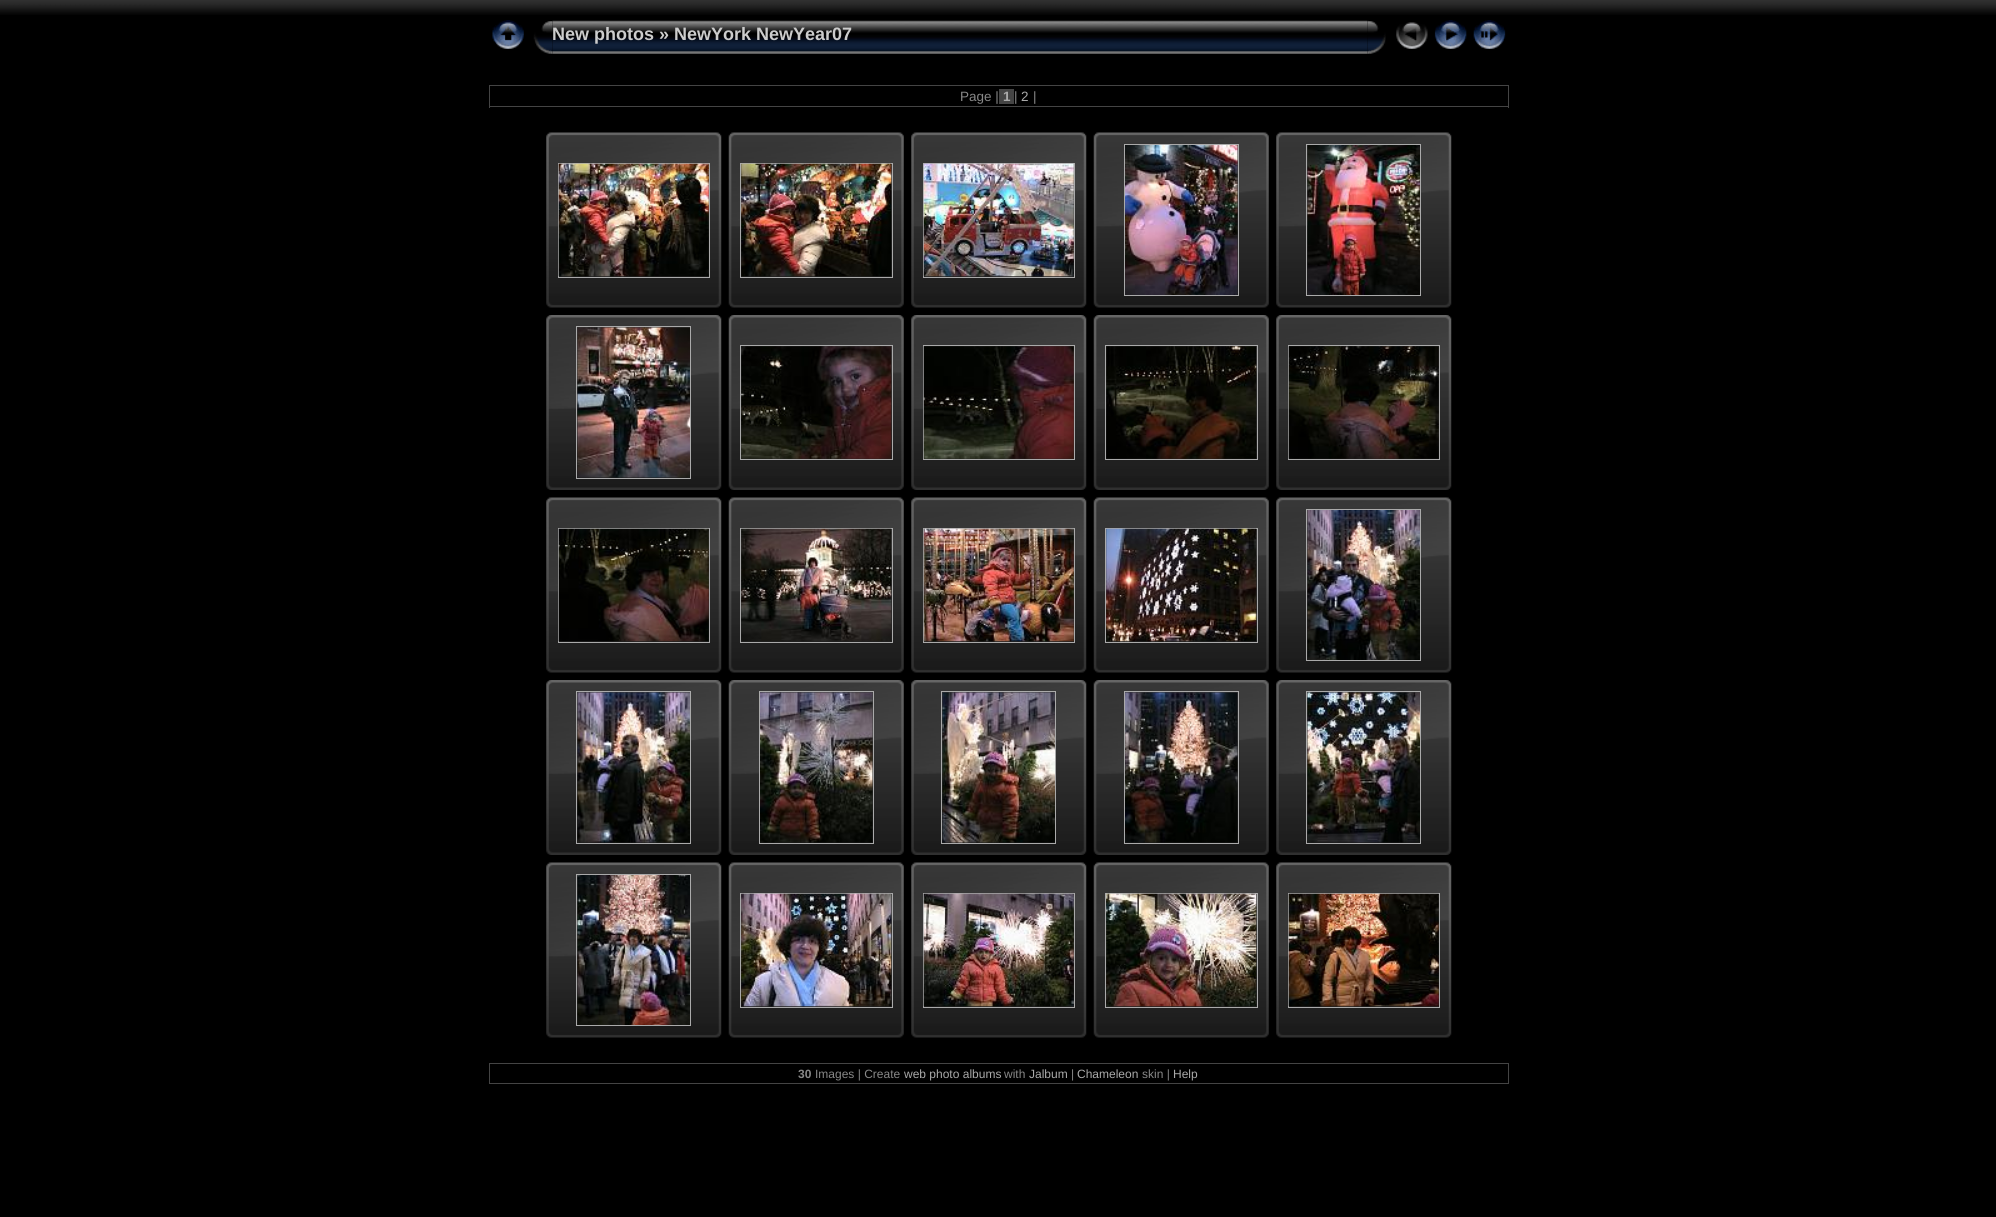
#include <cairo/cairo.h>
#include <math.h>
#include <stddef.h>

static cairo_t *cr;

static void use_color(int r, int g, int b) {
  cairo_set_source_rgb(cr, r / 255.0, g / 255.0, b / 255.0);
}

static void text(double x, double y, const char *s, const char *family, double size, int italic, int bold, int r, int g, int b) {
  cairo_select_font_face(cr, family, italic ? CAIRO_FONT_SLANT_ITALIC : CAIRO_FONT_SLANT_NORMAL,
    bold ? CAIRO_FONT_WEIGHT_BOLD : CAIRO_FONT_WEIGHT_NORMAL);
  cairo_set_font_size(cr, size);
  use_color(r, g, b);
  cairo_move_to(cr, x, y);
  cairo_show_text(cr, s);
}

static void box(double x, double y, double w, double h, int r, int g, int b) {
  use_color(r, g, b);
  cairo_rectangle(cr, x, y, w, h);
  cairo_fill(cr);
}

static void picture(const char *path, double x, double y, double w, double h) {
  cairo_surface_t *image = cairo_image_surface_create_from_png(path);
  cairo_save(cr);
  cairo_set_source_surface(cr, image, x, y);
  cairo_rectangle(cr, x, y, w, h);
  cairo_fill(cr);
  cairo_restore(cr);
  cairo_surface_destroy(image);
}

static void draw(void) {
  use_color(0, 0, 0);
  cairo_paint(cr);
  picture("img_01.png", 0, 0, 1996, 15);
  picture("img_02.png", 492, 20, 32, 29);
  picture("img_04.png", 552, 20, 816, 34);
  picture("img_03.png", 533, 21, 20, 33);
  picture("img_05.png", 1367, 20, 19, 34);
  picture("img_06.png", 1396, 22, 32, 27);
  picture("img_07.png", 1434, 20, 33, 29);
  picture("img_08.png", 1473, 20, 33, 29);
  box(489, 85, 1020, 1, 68, 68, 68);
  box(1508, 85, 1, 23, 68, 68, 68);
  box(489, 106, 1020, 1, 68, 68, 68);
  box(489, 85, 1, 23, 68, 68, 68);
  box(999, 89, 15, 15, 68, 68, 68);
  picture("img_09.png", 546, 132, 176, 176);
  cairo_rectangle(cr, 558.5, 163.5, 151, 114);
  use_color(170, 170, 170);
  cairo_set_line_width(cr, 1);
  cairo_stroke(cr);
  picture("img_10.png", 558, 163, 151, 114);
  picture("img_11.png", 728, 132, 176, 176);
  cairo_rectangle(cr, 740.5, 163.5, 152, 114);
  cairo_stroke(cr);
  picture("img_12.png", 741, 163, 151, 114);
  picture("img_13.png", 911, 132, 176, 176);
  cairo_rectangle(cr, 923.5, 163.5, 151, 114);
  cairo_stroke(cr);
  picture("img_14.png", 923, 163, 151, 114);
  picture("img_15.png", 1093, 132, 176, 176);
  cairo_rectangle(cr, 1124.5, 144.5, 114, 151);
  cairo_stroke(cr);
  picture("img_16.png", 1125, 145, 113, 150);
  picture("img_09.png", 1276, 132, 176, 176);
  cairo_rectangle(cr, 1306.5, 144.5, 114, 151);
  cairo_stroke(cr);
  picture("img_17.png", 1307, 145, 113, 150);
  picture("img_18.png", 546, 315, 176, 175);
  cairo_rectangle(cr, 576.5, 326.5, 114, 152);
  cairo_stroke(cr);
  picture("img_19.png", 577, 327, 113, 151);
  picture("img_20.png", 728, 315, 176, 175);
  cairo_rectangle(cr, 740.5, 345.5, 152, 114);
  cairo_stroke(cr);
  picture("img_21.png", 741, 346, 151, 113);
  picture("img_22.png", 911, 315, 176, 175);
  cairo_rectangle(cr, 923.5, 345.5, 151, 114);
  cairo_stroke(cr);
  picture("img_23.png", 923, 346, 151, 113);
  picture("img_24.png", 1093, 315, 176, 175);
  cairo_rectangle(cr, 1105.5, 345.5, 152, 114);
  cairo_stroke(cr);
  picture("img_25.png", 1106, 346, 151, 113);
  picture("img_18.png", 1276, 315, 176, 175);
  cairo_rectangle(cr, 1288.5, 345.5, 151, 114);
  cairo_stroke(cr);
  picture("img_26.png", 1288, 346, 151, 113);
  picture("img_09.png", 546, 497, 176, 176);
  cairo_rectangle(cr, 558.5, 528.5, 151, 114);
  cairo_stroke(cr);
  picture("img_27.png", 558, 528, 151, 114);
  picture("img_11.png", 728, 497, 176, 176);
  cairo_rectangle(cr, 740.5, 528.5, 152, 114);
  cairo_stroke(cr);
  picture("img_28.png", 741, 528, 151, 114);
  picture("img_13.png", 911, 497, 176, 176);
  cairo_rectangle(cr, 923.5, 528.5, 151, 114);
  cairo_stroke(cr);
  picture("img_29.png", 923, 528, 151, 114);
  picture("img_15.png", 1093, 497, 176, 176);
  cairo_rectangle(cr, 1105.5, 528.5, 152, 114);
  cairo_stroke(cr);
  picture("img_30.png", 1106, 528, 151, 114);
  picture("img_09.png", 1276, 497, 176, 176);
  cairo_rectangle(cr, 1306.5, 509.5, 114, 151);
  cairo_stroke(cr);
  picture("img_31.png", 1307, 510, 113, 150);
  picture("img_18.png", 546, 680, 176, 175);
  cairo_rectangle(cr, 576.5, 691.5, 114, 152);
  cairo_stroke(cr);
  picture("img_32.png", 577, 692, 113, 151);
  picture("img_20.png", 728, 680, 176, 175);
  cairo_rectangle(cr, 759.5, 691.5, 114, 152);
  cairo_stroke(cr);
  picture("img_33.png", 760, 692, 113, 151);
  picture("img_22.png", 911, 680, 176, 175);
  cairo_rectangle(cr, 941.5, 691.5, 114, 152);
  cairo_stroke(cr);
  picture("img_34.png", 942, 692, 113, 151);
  picture("img_24.png", 1093, 680, 176, 175);
  cairo_rectangle(cr, 1124.5, 691.5, 114, 152);
  cairo_stroke(cr);
  picture("img_35.png", 1125, 692, 113, 151);
  picture("img_18.png", 1276, 680, 176, 175);
  cairo_rectangle(cr, 1306.5, 691.5, 114, 152);
  cairo_stroke(cr);
  picture("img_36.png", 1307, 692, 113, 151);
  picture("img_09.png", 546, 862, 176, 176);
  cairo_rectangle(cr, 576.5, 874.5, 114, 151);
  cairo_stroke(cr);
  picture("img_37.png", 577, 875, 113, 150);
  picture("img_11.png", 728, 862, 176, 176);
  cairo_rectangle(cr, 740.5, 893.5, 152, 114);
  cairo_stroke(cr);
  picture("img_38.png", 741, 893, 151, 114);
  picture("img_13.png", 911, 862, 176, 176);
  cairo_rectangle(cr, 923.5, 893.5, 151, 114);
  cairo_stroke(cr);
  picture("img_39.png", 923, 893, 151, 114);
  picture("img_15.png", 1093, 862, 176, 176);
  cairo_rectangle(cr, 1105.5, 893.5, 152, 114);
  cairo_stroke(cr);
  picture("img_40.png", 1106, 893, 151, 114);
  picture("img_09.png", 1276, 862, 176, 176);
  cairo_rectangle(cr, 1288.5, 893.5, 151, 114);
  cairo_stroke(cr);
  picture("img_41.png", 1288, 893, 151, 114);
  box(489, 1063, 1020, 1, 68, 68, 68);
  box(1508, 1063, 1, 21, 68, 68, 68);
  box(489, 1083, 1020, 1, 68, 68, 68);
  box(489, 1063, 1, 21, 68, 68, 68);
  text(552, 40, "New photos » NewYork NewYear07", "Liberation Sans", 18, 0, 1, 204, 204, 204);
  text(960, 101, "Page |", "Liberation Sans", 13.5, 0, 0, 136, 136, 136);
  text(1003, 101, "1", "Liberation Sans", 13.5, 0, 1, 170, 170, 170);
  text(1014, 101, "|", "Liberation Sans", 13.5, 0, 0, 136, 136, 136);
  text(1021, 101, "2", "Liberation Sans", 13.5, 0, 0, 170, 170, 170);
  text(1033, 101, "|", "Liberation Sans", 13.5, 0, 0, 136, 136, 136);
  text(798, 1078, "30", "Liberation Sans", 12, 0, 1, 136, 136, 136);
  text(815, 1078, "Images | Create", "Liberation Sans", 12, 0, 0, 136, 136, 136);
  text(904, 1078, "web photo albums", "Liberation Sans", 12, 0, 0, 170, 170, 170);
  text(1004, 1078, "with", "Liberation Sans", 12, 0, 0, 136, 136, 136);
  text(1029, 1078, "Jalbum", "Liberation Sans", 12, 0, 0, 170, 170, 170);
  text(1071, 1078, "|", "Liberation Sans", 12, 0, 0, 136, 136, 136);
  text(1077, 1078, "Chameleon", "Liberation Sans", 12, 0, 0, 170, 170, 170);
  text(1142, 1078, "skin |", "Liberation Sans", 12, 0, 0, 136, 136, 136);
  text(1173, 1078, "Help", "Liberation Sans", 12, 0, 0, 170, 170, 170);
}

int main(void) {
  cairo_surface_t *surface = cairo_image_surface_create(CAIRO_FORMAT_RGB24, 1996, 1217);
  cr = cairo_create(surface);
  cairo_font_options_t *options = cairo_font_options_create();
  cairo_font_options_set_hint_metrics(options, CAIRO_HINT_METRICS_OFF);
  cairo_font_options_set_hint_style(options, CAIRO_HINT_STYLE_NONE);
  cairo_set_font_options(cr, options);
  cairo_set_miter_limit(cr, 4);
  draw();
  cairo_surface_write_to_png(surface, "out.png");
  cairo_font_options_destroy(options);
  cairo_destroy(cr);
  cairo_surface_destroy(surface);
  return 0;
}
